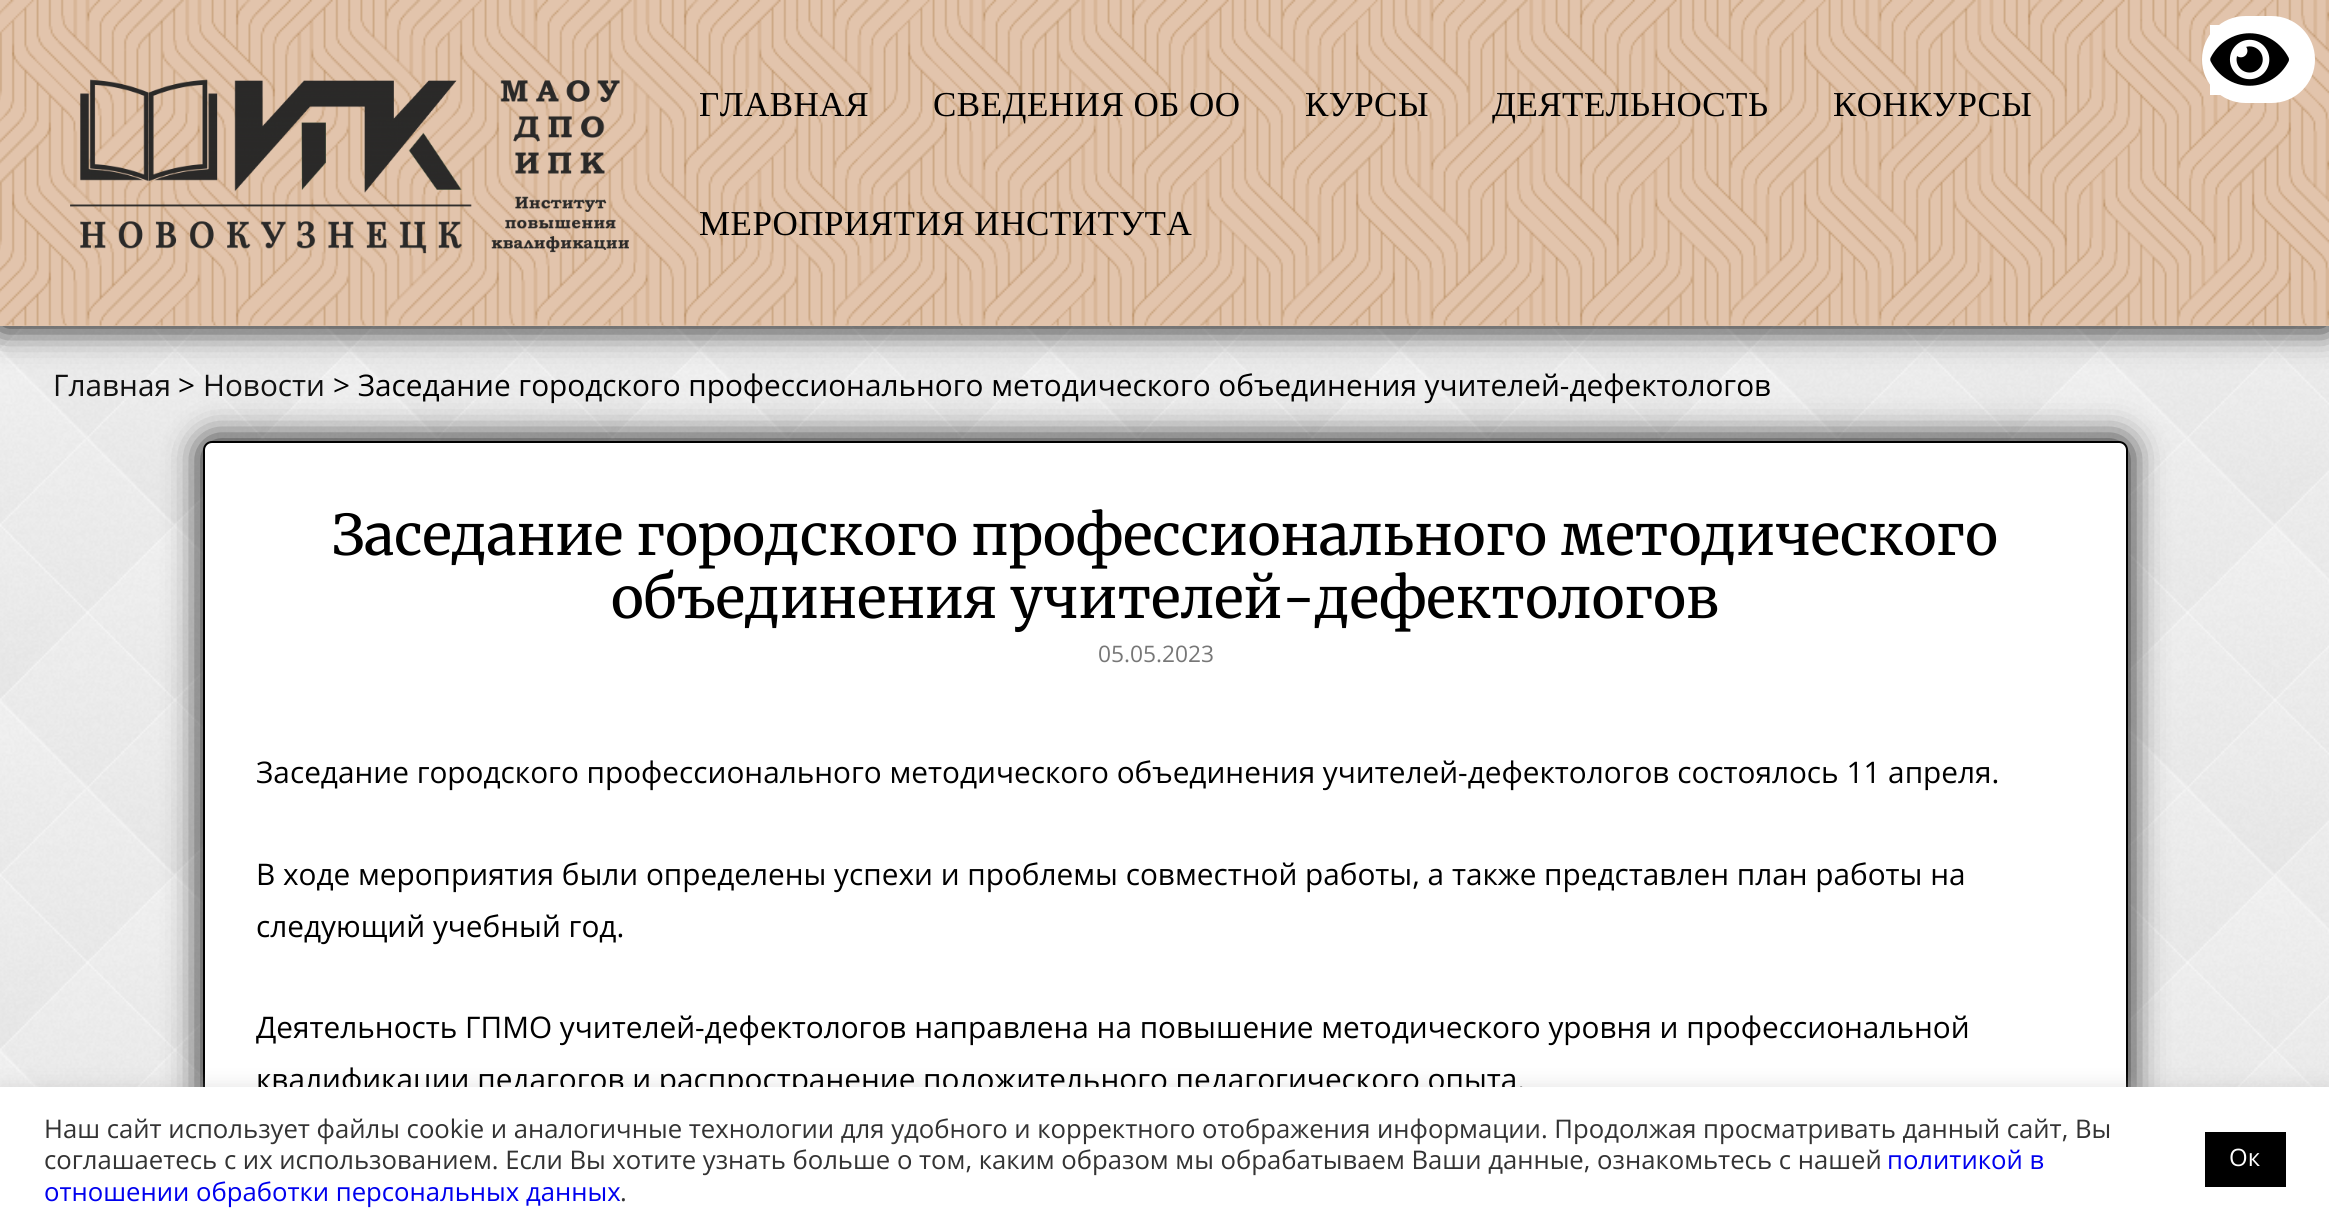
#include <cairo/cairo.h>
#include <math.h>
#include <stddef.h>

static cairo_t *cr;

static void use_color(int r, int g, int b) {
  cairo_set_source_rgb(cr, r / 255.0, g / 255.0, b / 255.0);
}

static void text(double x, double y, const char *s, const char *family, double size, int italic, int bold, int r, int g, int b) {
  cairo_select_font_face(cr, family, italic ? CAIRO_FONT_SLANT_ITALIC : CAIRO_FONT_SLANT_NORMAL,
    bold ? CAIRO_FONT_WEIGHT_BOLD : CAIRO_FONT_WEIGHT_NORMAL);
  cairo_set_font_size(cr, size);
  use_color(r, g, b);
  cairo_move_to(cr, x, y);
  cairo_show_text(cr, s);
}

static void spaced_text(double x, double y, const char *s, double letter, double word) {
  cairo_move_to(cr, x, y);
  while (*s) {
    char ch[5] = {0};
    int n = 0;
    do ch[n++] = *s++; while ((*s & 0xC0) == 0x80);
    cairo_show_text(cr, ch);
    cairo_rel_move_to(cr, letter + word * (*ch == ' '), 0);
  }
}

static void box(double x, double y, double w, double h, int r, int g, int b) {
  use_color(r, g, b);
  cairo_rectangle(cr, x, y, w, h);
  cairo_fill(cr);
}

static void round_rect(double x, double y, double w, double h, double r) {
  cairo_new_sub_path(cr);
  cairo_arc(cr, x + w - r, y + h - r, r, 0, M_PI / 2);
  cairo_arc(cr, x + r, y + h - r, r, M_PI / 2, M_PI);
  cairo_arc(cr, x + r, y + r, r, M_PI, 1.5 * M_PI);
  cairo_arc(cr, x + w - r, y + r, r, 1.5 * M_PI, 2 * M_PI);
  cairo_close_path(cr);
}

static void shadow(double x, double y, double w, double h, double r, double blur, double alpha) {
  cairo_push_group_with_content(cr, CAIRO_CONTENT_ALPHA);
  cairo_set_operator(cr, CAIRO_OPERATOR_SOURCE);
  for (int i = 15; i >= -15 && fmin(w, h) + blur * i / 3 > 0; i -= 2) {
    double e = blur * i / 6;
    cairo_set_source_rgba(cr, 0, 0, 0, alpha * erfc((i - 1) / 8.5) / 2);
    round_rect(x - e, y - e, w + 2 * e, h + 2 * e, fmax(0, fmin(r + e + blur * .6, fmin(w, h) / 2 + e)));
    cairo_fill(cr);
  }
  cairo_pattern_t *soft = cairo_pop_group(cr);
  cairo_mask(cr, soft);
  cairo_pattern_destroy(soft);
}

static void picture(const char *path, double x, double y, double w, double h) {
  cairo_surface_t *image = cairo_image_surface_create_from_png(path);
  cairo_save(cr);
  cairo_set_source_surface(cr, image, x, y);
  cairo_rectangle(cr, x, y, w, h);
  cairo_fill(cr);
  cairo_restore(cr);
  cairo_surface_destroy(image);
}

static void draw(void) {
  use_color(255, 255, 255);
  cairo_paint(cr);
  picture("img_01.png", 0, 326, 2329, 761);
  use_color(0, 0, 0);
  shadow(0, 0, 2329, 326, 0, 17.5, 1);
  box(0, 325, 2329, 1, 226, 196, 172);
  picture("img_02.png", 0, 0, 2329, 326);
  use_color(255, 255, 255);
  round_rect(2202, 16, 113, 87, 43.5);
  cairo_fill(cr);
  box(2210, 25, 11, 70, 255, 255, 255);
  picture("img_03.png", 2210, 33, 79, 53);
  picture("img_04.png", 70, 79, 559, 175);
  use_color(0, 0, 0);
  shadow(203, 441, 1925, 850, 9, 17.5, 1);
  use_color(255, 255, 255);
  round_rect(204, 442, 1923, 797, 8);
  cairo_fill_preserve(cr);
  use_color(0, 0, 0);
  cairo_stroke(cr);
  use_color(172, 171, 171);
  shadow(0, 1085, 2329, 144, 0, 9, 0.3);
  cairo_select_font_face(cr, "Liberation Serif", CAIRO_FONT_SLANT_NORMAL, CAIRO_FONT_WEIGHT_NORMAL);
  cairo_set_font_size(cr, 35);
  use_color(0, 0, 0);
  spaced_text(699, 116, "ГЛАВНАЯ", 0.5, 0);
  spaced_text(933, 116, "СВЕДЕНИЯ ОБ ОО", 0.5, 0);
  spaced_text(1305, 116, "КУРСЫ", 0.5, 0);
  spaced_text(1492, 116, "ДЕЯТЕЛЬНОСТЬ", 0.5, 0);
  spaced_text(1833, 116, "КОНКУРСЫ", 0.5, 0);
  spaced_text(699, 235, "МЕРОПРИЯТИЯ ИНСТИТУТА", 0.5, 0);
  text(53, 396, "Главная", "Open Sans", 29.75, 0, 0, 17, 17, 17);
  text(178, 396, ">", "Open Sans", 29.75, 0, 0, 0, 0, 0);
  text(203, 396, "Новости", "Open Sans", 29.75, 0, 0, 17, 17, 17);
  text(333, 396, "> Заседание городского профессионального методического объединения учителей-дефектологов", "Open Sans", 29.75, 0, 0, 0, 0, 0);
  text(332, 555, "Заседание городского профессионального методического", "Merriweather", 56, 0, 0, 0, 0, 0);
  text(611, 618, "объединения учителей-дефектологов", "Merriweather", 56, 0, 0, 0, 0, 0);
  text(1098, 662, "05.05.2023", "Open Sans", 22.75, 0, 0, 119, 119, 119);
  text(256, 783, "Заседание городского профессионального методического объединения учителей-дефектологов состоялось 11 апреля.", "Open Sans", 29.75, 0, 0, 0, 0, 0);
  text(256, 885, "В ходе мероприятия были определены успехи и проблемы совместной работы, а также представлен план работы на", "Open Sans", 29.75, 0, 0, 0, 0, 0);
  text(256, 937, "следующий учебный год.", "Open Sans", 29.75, 0, 0, 0, 0, 0);
  text(256, 1038, "Деятельность ГПМО учителей-дефектологов направлена на повышение методического уровня и профессиональной", "Open Sans", 29.75, 0, 0, 0, 0, 0);
  text(256, 1090, "квалификации педагогов и распространение положительного педагогического опыта.", "Open Sans", 29.75, 0, 0, 0, 0, 0);
  box(0, 1087, 2329, 142, 255, 255, 255);
  text(44, 1138, "Наш сайт использует файлы cookie и аналогичные технологии для удобного и корректного отображения информации. Продолжая просматривать данный сайт, Вы", "Open Sans", 25.67, 0, 0, 51, 51, 51);
  text(44, 1169, "соглашаетесь с их использованием. Если Вы хотите узнать больше о том, каким образом мы обрабатываем Ваши данные, ознакомьтесь с нашей", "Open Sans", 25.67, 0, 0, 51, 51, 51);
  text(1887, 1169, "политикой в", "Open Sans", 25.67, 0, 0, 0, 0, 238);
  text(44, 1201, "отношении обработки персональных данных", "Open Sans", 25.67, 0, 0, 0, 0, 238);
  text(620, 1201, ".", "Open Sans", 25.67, 0, 0, 51, 51, 51);
  box(2205, 1132, 81, 55, 0, 0, 0);
  text(2229, 1166, "Ок", "Open Sans", 24, 0, 0, 255, 255, 255);
}

int main(void) {
  cairo_surface_t *surface = cairo_image_surface_create(CAIRO_FORMAT_RGB24, 2329, 1229);
  cr = cairo_create(surface);
  cairo_font_options_t *options = cairo_font_options_create();
  cairo_font_options_set_hint_metrics(options, CAIRO_HINT_METRICS_OFF);
  cairo_font_options_set_hint_style(options, CAIRO_HINT_STYLE_NONE);
  cairo_set_font_options(cr, options);
  cairo_set_miter_limit(cr, 4);
  draw();
  cairo_surface_write_to_png(surface, "out.png");
  cairo_font_options_destroy(options);
  cairo_destroy(cr);
  cairo_surface_destroy(surface);
  return 0;
}
